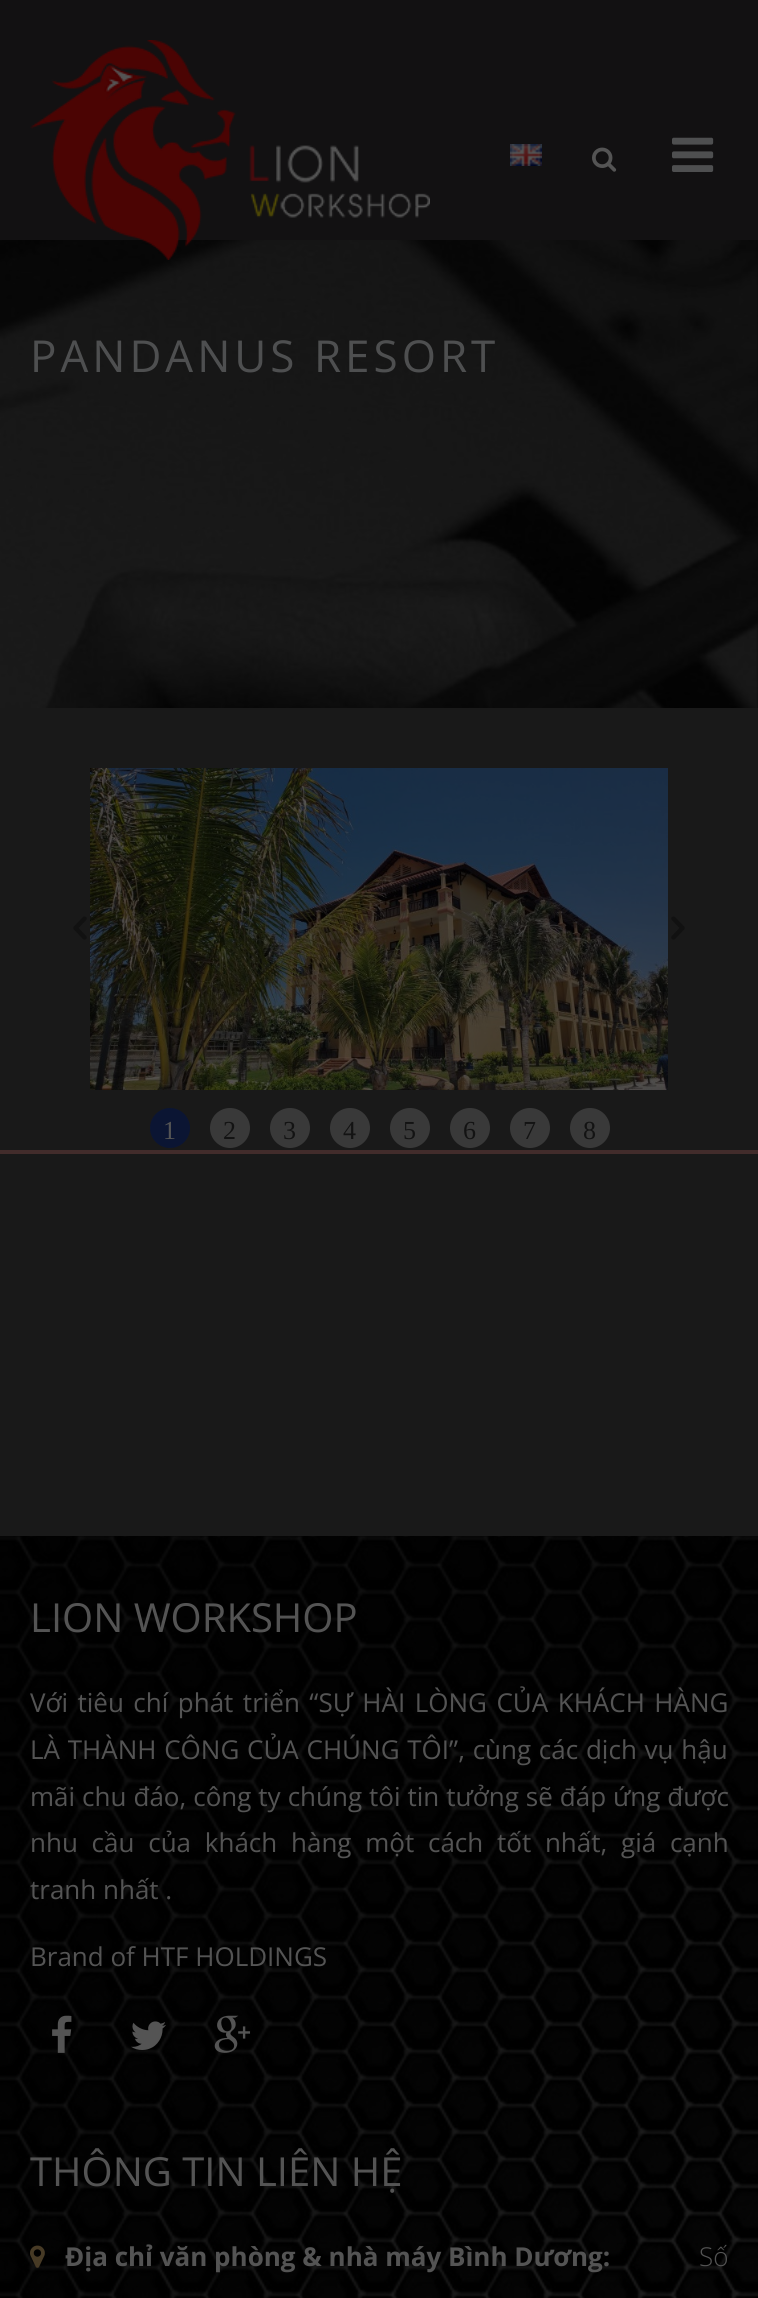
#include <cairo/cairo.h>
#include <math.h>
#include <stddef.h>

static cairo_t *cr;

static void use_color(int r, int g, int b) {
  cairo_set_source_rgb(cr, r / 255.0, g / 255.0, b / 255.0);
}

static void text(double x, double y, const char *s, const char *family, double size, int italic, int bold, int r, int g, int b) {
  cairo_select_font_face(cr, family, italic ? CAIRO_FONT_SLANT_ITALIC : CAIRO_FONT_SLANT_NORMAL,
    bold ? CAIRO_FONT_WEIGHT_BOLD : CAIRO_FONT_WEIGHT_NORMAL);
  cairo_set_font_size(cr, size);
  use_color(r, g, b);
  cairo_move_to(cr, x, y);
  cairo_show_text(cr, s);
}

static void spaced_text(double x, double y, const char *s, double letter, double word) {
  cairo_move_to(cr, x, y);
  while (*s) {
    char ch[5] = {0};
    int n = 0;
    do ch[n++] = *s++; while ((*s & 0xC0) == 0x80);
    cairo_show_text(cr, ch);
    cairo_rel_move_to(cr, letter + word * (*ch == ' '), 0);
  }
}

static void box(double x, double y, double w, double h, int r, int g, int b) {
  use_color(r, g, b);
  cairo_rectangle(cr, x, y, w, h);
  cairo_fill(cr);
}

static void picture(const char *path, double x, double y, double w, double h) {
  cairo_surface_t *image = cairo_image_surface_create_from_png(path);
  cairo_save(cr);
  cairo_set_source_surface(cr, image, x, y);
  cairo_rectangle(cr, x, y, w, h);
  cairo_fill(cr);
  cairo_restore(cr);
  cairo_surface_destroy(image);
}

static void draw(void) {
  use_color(25, 25, 25);
  cairo_paint(cr);
  box(0, 0, 758, 240, 18, 17, 18);
  box(756, 240, 2, 468, 11, 11, 11);
  picture("img_05.png", 0, 240, 758, 468);
  picture("img_01.png", 30, 40, 400, 220);
  picture("img_02.png", 510, 144, 32, 22);
  picture("img_03.png", 592, 147, 25, 25);
  picture("img_04.png", 672, 137, 42, 35);
  picture("img_06.png", 73, 916, 14, 24);
  picture("img_07.png", 90, 768, 578, 322);
  picture("img_08.png", 671, 916, 14, 24);
  use_color(11, 21, 51);
  cairo_arc(cr, 170, 1128, 20, 0, 2 * M_PI);
  cairo_fill(cr);
  use_color(57, 57, 57);
  cairo_arc(cr, 230, 1128, 20, 0, 2 * M_PI);
  cairo_fill(cr);
  cairo_arc(cr, 290, 1128, 20, 0, 2 * M_PI);
  cairo_fill(cr);
  cairo_arc(cr, 350, 1128, 20, 0, 2 * M_PI);
  cairo_fill(cr);
  cairo_arc(cr, 410, 1128, 20, 0, 2 * M_PI);
  cairo_fill(cr);
  cairo_arc(cr, 470, 1128, 20, 0, 2 * M_PI);
  cairo_fill(cr);
  cairo_arc(cr, 530, 1128, 20, 0, 2 * M_PI);
  cairo_fill(cr);
  cairo_arc(cr, 590, 1128, 20, 0, 2 * M_PI);
  cairo_fill(cr);
  picture("img_09.png", 0, 1536, 758, 762);
  picture("img_10.png", 52, 2015, 20, 38);
  picture("img_11.png", 131, 2021, 35, 29);
  picture("img_12.png", 214, 2015, 37, 38);
  picture("img_13.png", 30, 2245, 15, 23);
  box(0, 1150, 758, 4, 66, 44, 43);
  cairo_select_font_face(cr, "Open Sans", CAIRO_FONT_SLANT_NORMAL, CAIRO_FONT_WEIGHT_NORMAL);
  cairo_set_font_size(cr, 44);
  use_color(78, 79, 80);
  spaced_text(30, 372, "PANDANUS RESORT", 4, 0);
  text(163, 1139, "1", "Liberation Serif", 26, 0, 0, 84, 84, 84);
  text(223, 1139, "2", "Liberation Serif", 26, 0, 0, 19, 19, 19);
  text(283, 1139, "3", "Liberation Serif", 26, 0, 0, 19, 19, 19);
  text(343, 1139, "4", "Liberation Serif", 26, 0, 0, 19, 19, 19);
  text(403, 1139, "5", "Liberation Serif", 26, 0, 0, 19, 19, 19);
  text(463, 1139, "6", "Liberation Serif", 26, 0, 0, 19, 19, 19);
  text(523, 1139, "7", "Liberation Serif", 26, 0, 0, 19, 19, 19);
  text(583, 1139, "8", "Liberation Serif", 26, 0, 0, 19, 19, 19);
  text(30, 1632, "LION WORKSHOP", "Open Sans", 40, 0, 0, 84, 84, 84);
  cairo_set_font_size(cr, 26);
  spaced_text(30, 1712, "Với tiêu chí phát triển “SỰ HÀI LÒNG CỦA KHÁCH HÀNG", 0, 2.75);
  spaced_text(30, 1759, "LÀ THÀNH CÔNG CỦA CHÚNG TÔI”, cùng các dịch vụ hậu", 0, 1);
  spaced_text(30, 1806, "mãi chu đáo, công ty chúng tôi tin tưởng sẽ đáp ứng được", 0, 0.25);
  spaced_text(30, 1852, "nhu cầu của khách hàng một cách tốt nhất, giá cạnh", 0, 7);
  text(30, 1899, "tranh nhất .", "Open Sans", 26, 0, 0, 84, 84, 84);
  text(30, 1966, "Brand of HTF HOLDINGS", "Open Sans", 26, 0, 0, 84, 84, 84);
  text(30, 2186, "THÔNG TIN LIÊN HỆ", "Open Sans", 40, 0, 0, 84, 84, 84);
  text(65, 2266, "Địa chỉ văn phòng & nhà máy Bình Dương:", "Open Sans", 26, 0, 1, 84, 84, 84);
  text(699, 2266, "Số", "Open Sans Light", 26, 0, 0, 84, 84, 84);
}

int main(void) {
  cairo_surface_t *surface = cairo_image_surface_create(CAIRO_FORMAT_RGB24, 758, 2298);
  cr = cairo_create(surface);
  cairo_font_options_t *options = cairo_font_options_create();
  cairo_font_options_set_hint_metrics(options, CAIRO_HINT_METRICS_OFF);
  cairo_font_options_set_hint_style(options, CAIRO_HINT_STYLE_NONE);
  cairo_set_font_options(cr, options);
  cairo_set_miter_limit(cr, 4);
  draw();
  cairo_surface_write_to_png(surface, "out.png");
  cairo_font_options_destroy(options);
  cairo_destroy(cr);
  cairo_surface_destroy(surface);
  return 0;
}
